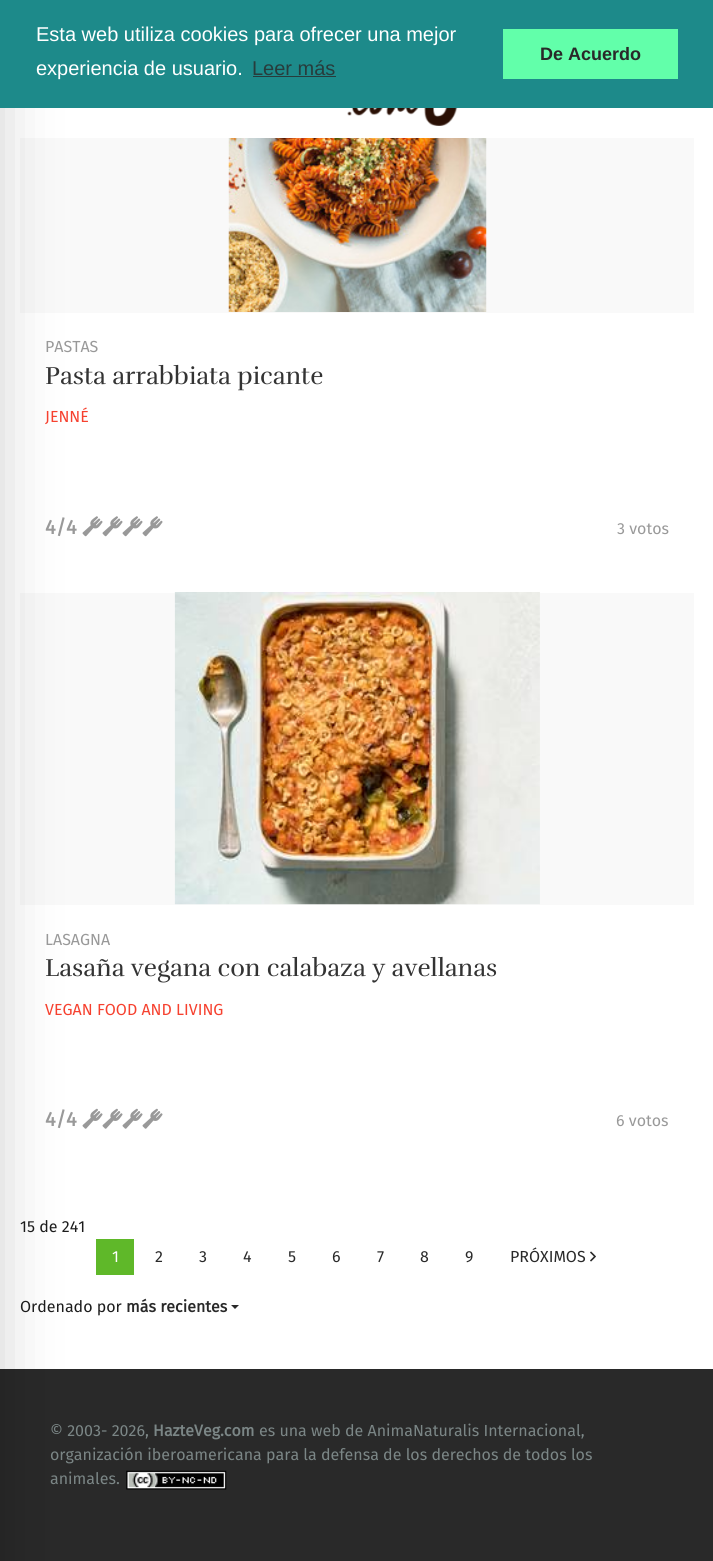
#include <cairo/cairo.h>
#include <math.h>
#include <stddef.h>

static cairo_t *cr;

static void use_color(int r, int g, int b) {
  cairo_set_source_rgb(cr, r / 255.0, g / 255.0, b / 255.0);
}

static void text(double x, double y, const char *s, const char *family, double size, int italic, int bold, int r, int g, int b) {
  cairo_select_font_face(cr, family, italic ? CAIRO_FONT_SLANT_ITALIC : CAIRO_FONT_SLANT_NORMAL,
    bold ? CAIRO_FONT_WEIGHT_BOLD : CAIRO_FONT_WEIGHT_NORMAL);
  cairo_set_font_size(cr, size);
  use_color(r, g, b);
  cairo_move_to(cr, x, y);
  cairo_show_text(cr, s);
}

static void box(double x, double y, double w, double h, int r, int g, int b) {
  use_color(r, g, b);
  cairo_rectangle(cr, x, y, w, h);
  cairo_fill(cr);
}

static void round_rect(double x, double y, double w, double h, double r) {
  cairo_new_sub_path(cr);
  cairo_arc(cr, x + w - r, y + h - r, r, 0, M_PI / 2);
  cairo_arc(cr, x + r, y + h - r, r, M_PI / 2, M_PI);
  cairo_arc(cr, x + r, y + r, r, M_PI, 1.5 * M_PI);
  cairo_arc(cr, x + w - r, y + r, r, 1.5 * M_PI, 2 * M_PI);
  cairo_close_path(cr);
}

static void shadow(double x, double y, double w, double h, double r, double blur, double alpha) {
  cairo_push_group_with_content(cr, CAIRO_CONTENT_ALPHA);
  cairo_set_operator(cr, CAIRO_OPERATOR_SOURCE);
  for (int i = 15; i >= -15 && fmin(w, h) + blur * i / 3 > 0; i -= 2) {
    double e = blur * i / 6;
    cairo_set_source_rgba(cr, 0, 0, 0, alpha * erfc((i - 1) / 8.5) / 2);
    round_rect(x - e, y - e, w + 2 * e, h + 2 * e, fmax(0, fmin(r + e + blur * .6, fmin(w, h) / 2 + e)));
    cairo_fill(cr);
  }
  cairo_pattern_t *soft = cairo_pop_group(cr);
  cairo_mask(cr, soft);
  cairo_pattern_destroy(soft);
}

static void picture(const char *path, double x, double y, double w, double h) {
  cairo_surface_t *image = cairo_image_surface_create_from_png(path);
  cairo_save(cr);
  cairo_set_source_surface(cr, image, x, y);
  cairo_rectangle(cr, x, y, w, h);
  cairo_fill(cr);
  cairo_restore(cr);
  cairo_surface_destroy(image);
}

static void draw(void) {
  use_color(255, 255, 255);
  cairo_paint(cr);
  box(20, 138, 674, 175, 249, 249, 249);
  picture("img_03.png", 82, 516, 21, 21);
  box(20, 593, 674, 312, 249, 249, 249);
  picture("img_06.png", 82, 1108, 21, 21);
  box(0, 1369, 713, 192, 41, 41, 41);
  use_color(0, 0, 0);
  shadow(-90, 20, 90, 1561, 0, 30, 0.18);
  box(0, 0, 713, 108, 29, 138, 138);
  box(253, 76, 83, 1, 39, 60, 60);
  box(503, 29, 175, 50, 98, 255, 170);
  picture("img_01.png", 347, 108, 111, 18);
  picture("img_02.png", 228, 138, 259, 174);
  picture("img_04.png", 102, 516, 21, 21);
  picture("img_04.png", 122, 516, 21, 21);
  picture("img_04.png", 142, 516, 21, 21);
  picture("img_05.png", 174, 592, 366, 313);
  picture("img_07.png", 102, 1108, 21, 21);
  picture("img_07.png", 122, 1108, 21, 21);
  picture("img_07.png", 142, 1108, 21, 21);
  box(96, 1239, 38, 36, 95, 184, 41);
  picture("img_08.png", 590, 1251, 6, 11);
  use_color(41, 41, 41);
  cairo_new_path(cr);
  cairo_move_to(cr, 231, 1305);
  cairo_line_to(cr, 239, 1305);
  cairo_line_to(cr, 235, 1309);
  cairo_close_path(cr);
  cairo_fill(cr);
  picture("img_09.png", 126, 1470, 101, 20);
  text(36, 41, "Esta web utiliza cookies para ofrecer una mejor", "Liberation Sans", 20, 0, 0, 255, 255, 255);
  text(36, 75, "experiencia de usuario.", "Liberation Sans", 20, 0, 0, 255, 255, 255);
  text(252, 75, "Leer más", "Liberation Sans", 20, 0, 0, 39, 60, 60);
  text(540, 60, "De Acuerdo", "Liberation Sans", 18, 0, 1, 41, 41, 41);
  text(45, 352, "PASTAS", "Fira Sans", 16, 0, 0, 153, 153, 153);
  text(45, 384, "Pasta arrabbiata picante", "Rufina", 25, 0, 0, 51, 51, 51);
  text(45, 422, "JENNÉ", "Fira Sans", 16, 0, 0, 246, 65, 47);
  text(45, 534, "4/4", "Fira Sans", 20, 0, 1, 153, 153, 153);
  text(617, 534, "3 votos", "Fira Sans", 16, 0, 0, 153, 153, 153);
  text(45, 945, "LASAGNA", "Fira Sans", 16, 0, 0, 153, 153, 153);
  text(45, 976, "Lasaña vegana con calabaza y avellanas", "Rufina", 25, 0, 0, 51, 51, 51);
  text(45, 1015, "VEGAN FOOD AND LIVING", "Fira Sans", 16, 0, 0, 246, 65, 47);
  text(45, 1126, "4/4", "Fira Sans", 20, 0, 1, 153, 153, 153);
  text(616, 1126, "6 votos", "Fira Sans", 16, 0, 0, 153, 153, 153);
  text(20, 1232, "15 de 241", "Fira Sans", 16, 0, 0, 28, 28, 28);
  text(112, 1262, "1", "Fira Sans", 16, 0, 0, 255, 255, 255);
  text(155, 1262, "2", "Fira Sans", 16, 0, 0, 41, 41, 41);
  text(199, 1262, "3", "Fira Sans", 16, 0, 0, 41, 41, 41);
  text(243, 1262, "4", "Fira Sans", 16, 0, 0, 41, 41, 41);
  text(288, 1262, "5", "Fira Sans", 16, 0, 0, 41, 41, 41);
  text(332, 1262, "6", "Fira Sans", 16, 0, 0, 41, 41, 41);
  text(377, 1262, "7", "Fira Sans", 16, 0, 0, 41, 41, 41);
  text(420, 1262, "8", "Fira Sans", 16, 0, 0, 41, 41, 41);
  text(465, 1262, "9", "Fira Sans", 16, 0, 0, 41, 41, 41);
  text(510, 1262, "PRÓXIMOS", "Fira Sans", 16, 0, 0, 41, 41, 41);
  text(20, 1312, "Ordenado por", "Fira Sans", 16, 0, 0, 28, 28, 28);
  text(126, 1312, "más recientes", "Fira Sans", 16, 0, 1, 41, 41, 41);
  text(50, 1436, "© 2003- 2026,", "Fira Sans", 16, 0, 0, 123, 134, 134);
  text(153, 1436, "HazteVeg.com", "Fira Sans", 16, 0, 1, 123, 134, 134);
  text(259, 1436, "es una web de AnimaNaturalis Internacional,", "Fira Sans", 16, 0, 0, 123, 134, 134);
  text(50, 1460, "organización iberoamericana para la defensa de los derechos de todos los", "Fira Sans", 16, 0, 0, 123, 134, 134);
  text(50, 1484, "animales.", "Fira Sans", 16, 0, 0, 123, 134, 134);
}

int main(void) {
  cairo_surface_t *surface = cairo_image_surface_create(CAIRO_FORMAT_RGB24, 713, 1561);
  cr = cairo_create(surface);
  cairo_font_options_t *options = cairo_font_options_create();
  cairo_font_options_set_hint_metrics(options, CAIRO_HINT_METRICS_OFF);
  cairo_font_options_set_hint_style(options, CAIRO_HINT_STYLE_NONE);
  cairo_set_font_options(cr, options);
  cairo_set_miter_limit(cr, 4);
  draw();
  cairo_surface_write_to_png(surface, "out.png");
  cairo_font_options_destroy(options);
  cairo_destroy(cr);
  cairo_surface_destroy(surface);
  return 0;
}
